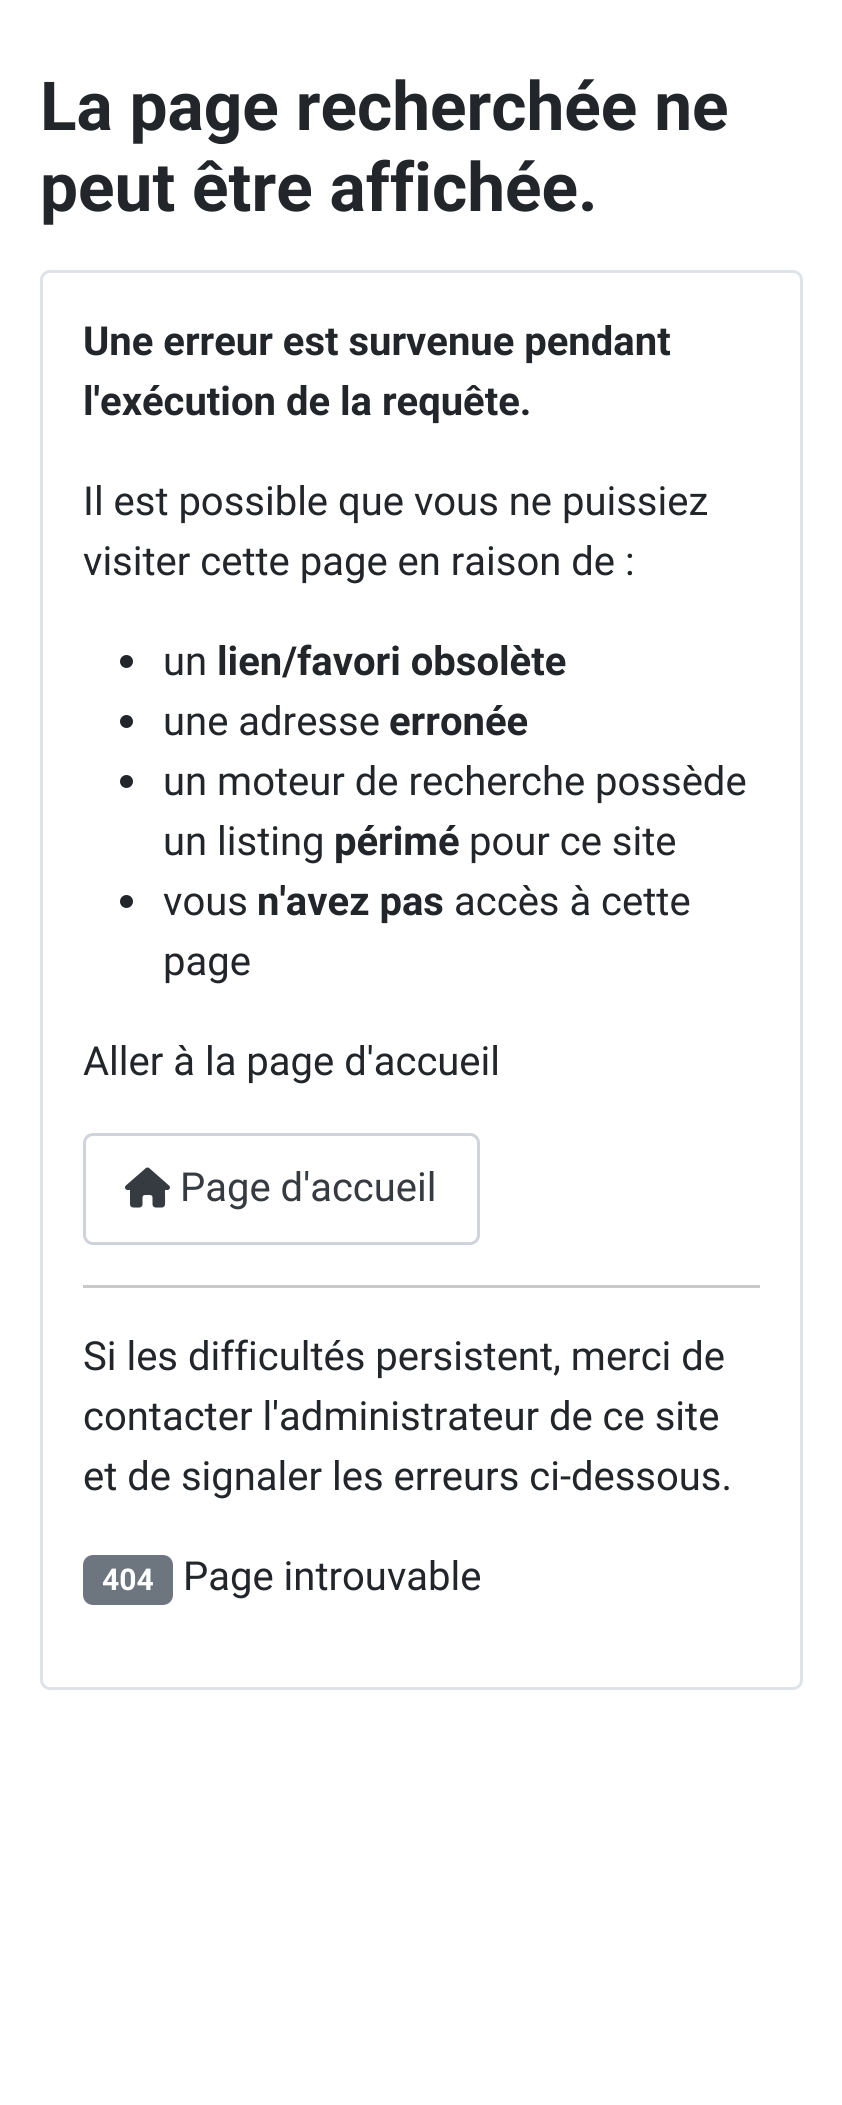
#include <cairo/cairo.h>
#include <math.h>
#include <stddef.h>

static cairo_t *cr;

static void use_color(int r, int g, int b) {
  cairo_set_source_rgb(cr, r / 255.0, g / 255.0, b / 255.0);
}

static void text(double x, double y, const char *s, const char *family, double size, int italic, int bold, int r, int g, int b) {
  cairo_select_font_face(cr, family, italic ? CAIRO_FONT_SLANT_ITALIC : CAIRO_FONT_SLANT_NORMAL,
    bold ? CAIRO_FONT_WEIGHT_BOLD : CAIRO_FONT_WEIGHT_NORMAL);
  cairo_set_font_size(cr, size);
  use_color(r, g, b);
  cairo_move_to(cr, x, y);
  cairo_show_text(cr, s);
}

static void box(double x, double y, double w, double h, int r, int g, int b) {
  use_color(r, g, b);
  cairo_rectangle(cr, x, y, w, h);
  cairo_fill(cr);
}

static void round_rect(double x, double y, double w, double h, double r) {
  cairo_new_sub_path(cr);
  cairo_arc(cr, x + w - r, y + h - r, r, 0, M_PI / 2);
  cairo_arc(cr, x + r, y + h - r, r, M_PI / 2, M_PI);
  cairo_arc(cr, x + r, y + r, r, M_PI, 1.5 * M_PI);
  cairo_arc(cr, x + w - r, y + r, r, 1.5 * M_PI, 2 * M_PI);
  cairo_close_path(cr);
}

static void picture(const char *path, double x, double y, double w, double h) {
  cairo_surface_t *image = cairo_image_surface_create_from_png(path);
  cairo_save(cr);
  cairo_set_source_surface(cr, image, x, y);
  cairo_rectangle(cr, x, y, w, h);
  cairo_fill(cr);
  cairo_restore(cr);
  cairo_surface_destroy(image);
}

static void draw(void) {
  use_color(255, 255, 255);
  cairo_paint(cr);
  round_rect(41.5, 271.5, 760, 1417, 8.5);
  use_color(223, 227, 231);
  cairo_set_line_width(cr, 3);
  cairo_stroke(cr);
  use_color(34, 38, 42);
  cairo_arc(cr, 126.5, 661.5, 6.5, 0, 2 * M_PI);
  cairo_fill(cr);
  cairo_arc(cr, 126.5, 721.5, 6.5, 0, 2 * M_PI);
  cairo_fill(cr);
  cairo_arc(cr, 126.5, 781.5, 6.5, 0, 2 * M_PI);
  cairo_fill(cr);
  cairo_arc(cr, 126.5, 901.5, 6.5, 0, 2 * M_PI);
  cairo_fill(cr);
  round_rect(84.5, 1134.5, 394, 109, 8.5);
  use_color(206, 212, 218);
  cairo_stroke(cr);
  picture("img_01.png", 125, 1167, 45, 41);
  box(83, 1285, 677, 3, 200, 201, 202);
  use_color(109, 117, 126);
  round_rect(83, 1555, 90, 50, 10);
  cairo_fill(cr);
  text(40, 130, "La page recherchée ne", "Roboto", 67.6, 0, 1, 34, 38, 42);
  text(40, 211, "peut être affichée.", "Roboto", 67.6, 0, 1, 34, 38, 42);
  text(83, 355, "Une erreur est survenue pendant", "Roboto", 40, 0, 1, 34, 38, 42);
  text(83, 415, "l'exécution de la requête.", "Roboto", 40, 0, 1, 34, 38, 42);
  text(83, 515, "Il est possible que vous ne puissiez", "Roboto", 40, 0, 0, 34, 38, 42);
  text(83, 575, "visiter cette page en raison de :", "Roboto", 40, 0, 0, 34, 38, 42);
  text(163, 675, "un", "Roboto", 40, 0, 0, 34, 38, 42);
  text(217, 675, "lien/favori obsolète", "Roboto", 40, 0, 1, 34, 38, 42);
  text(163, 735, "une adresse", "Roboto", 40, 0, 0, 34, 38, 42);
  text(389, 735, "erronée", "Roboto", 40, 0, 1, 34, 38, 42);
  text(163, 795, "un moteur de recherche possède", "Roboto", 40, 0, 0, 34, 38, 42);
  text(163, 855, "un listing", "Roboto", 40, 0, 0, 34, 38, 42);
  text(334, 855, "périmé", "Roboto", 40, 0, 1, 34, 38, 42);
  text(469, 855, "pour ce site", "Roboto", 40, 0, 0, 34, 38, 42);
  text(163, 915, "vous", "Roboto", 40, 0, 0, 34, 38, 42);
  text(257, 915, "n'avez pas", "Roboto", 40, 0, 1, 34, 38, 42);
  text(454, 915, "accès à cette", "Roboto", 40, 0, 0, 34, 38, 42);
  text(163, 975, "page", "Roboto", 40, 0, 0, 34, 38, 42);
  text(83, 1075, "Aller à la page d'accueil", "Roboto", 40, 0, 0, 34, 38, 42);
  text(180, 1201, "Page d'accueil", "Roboto", 40, 0, 0, 53, 59, 65);
  text(83, 1370, "Si les difficultés persistent, merci de", "Roboto", 40, 0, 0, 34, 38, 42);
  text(83, 1430, "contacter l'administrateur de ce site", "Roboto", 40, 0, 0, 34, 38, 42);
  text(83, 1490, "et de signaler les erreurs ci-dessous.", "Roboto", 40, 0, 0, 34, 38, 42);
  text(102, 1590, "404", "Roboto", 30, 0, 1, 255, 255, 255);
  text(183, 1590, "Page introuvable", "Roboto", 40, 0, 0, 34, 38, 42);
}

int main(void) {
  cairo_surface_t *surface = cairo_image_surface_create(CAIRO_FORMAT_RGB24, 842, 2105);
  cr = cairo_create(surface);
  cairo_font_options_t *options = cairo_font_options_create();
  cairo_font_options_set_hint_metrics(options, CAIRO_HINT_METRICS_OFF);
  cairo_font_options_set_hint_style(options, CAIRO_HINT_STYLE_NONE);
  cairo_set_font_options(cr, options);
  cairo_set_miter_limit(cr, 4);
  draw();
  cairo_surface_write_to_png(surface, "out.png");
  cairo_font_options_destroy(options);
  cairo_destroy(cr);
  cairo_surface_destroy(surface);
  return 0;
}
